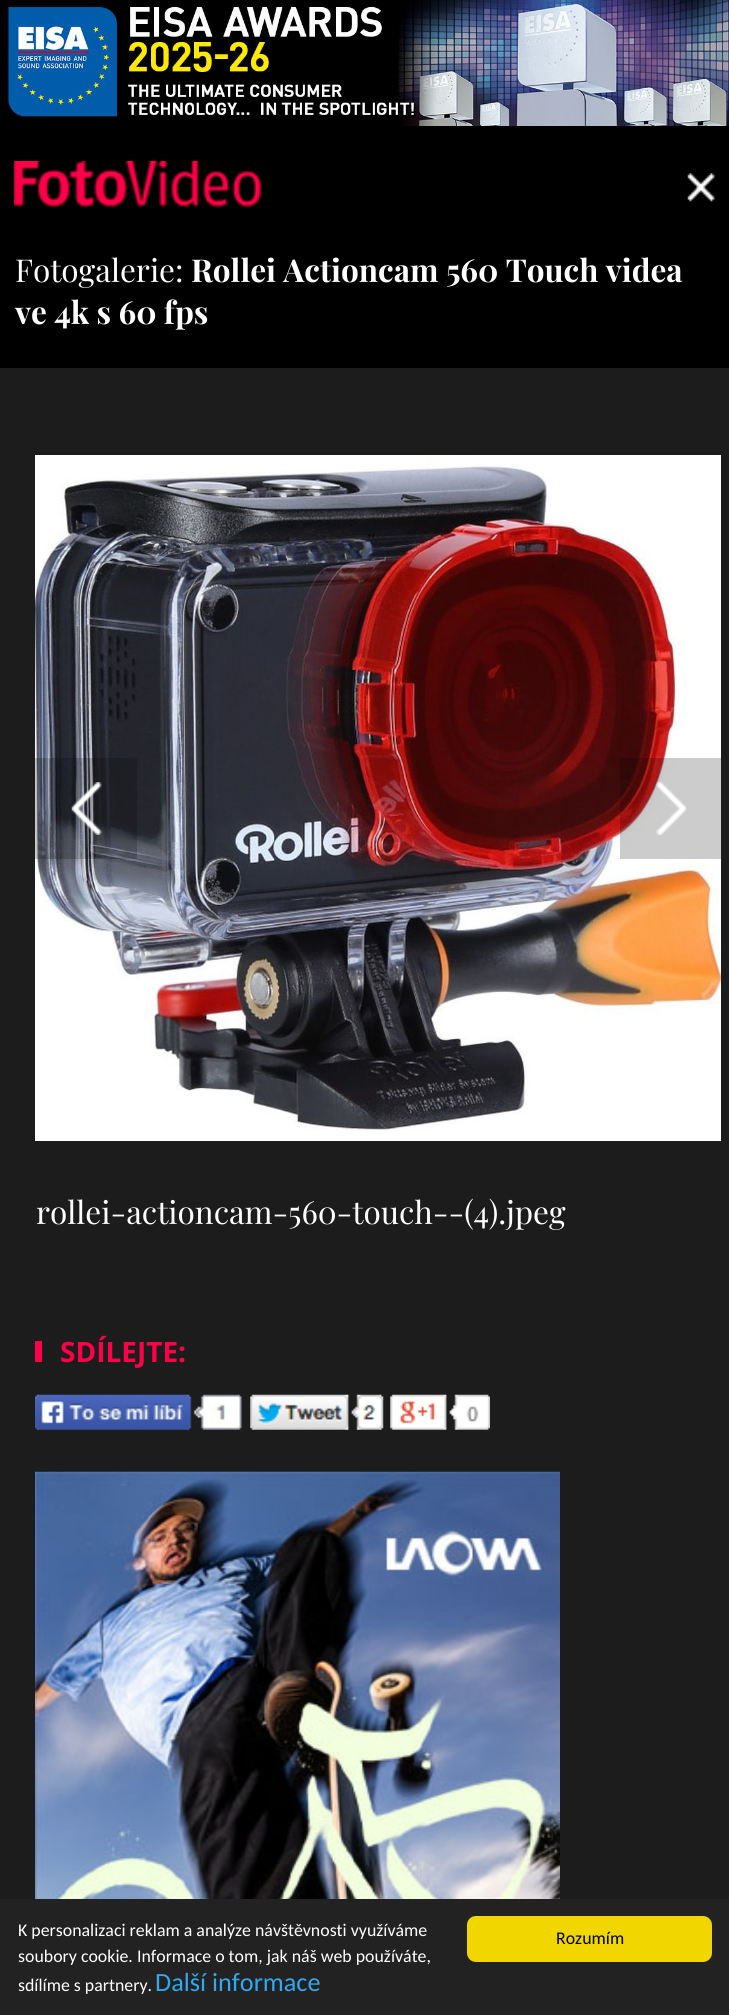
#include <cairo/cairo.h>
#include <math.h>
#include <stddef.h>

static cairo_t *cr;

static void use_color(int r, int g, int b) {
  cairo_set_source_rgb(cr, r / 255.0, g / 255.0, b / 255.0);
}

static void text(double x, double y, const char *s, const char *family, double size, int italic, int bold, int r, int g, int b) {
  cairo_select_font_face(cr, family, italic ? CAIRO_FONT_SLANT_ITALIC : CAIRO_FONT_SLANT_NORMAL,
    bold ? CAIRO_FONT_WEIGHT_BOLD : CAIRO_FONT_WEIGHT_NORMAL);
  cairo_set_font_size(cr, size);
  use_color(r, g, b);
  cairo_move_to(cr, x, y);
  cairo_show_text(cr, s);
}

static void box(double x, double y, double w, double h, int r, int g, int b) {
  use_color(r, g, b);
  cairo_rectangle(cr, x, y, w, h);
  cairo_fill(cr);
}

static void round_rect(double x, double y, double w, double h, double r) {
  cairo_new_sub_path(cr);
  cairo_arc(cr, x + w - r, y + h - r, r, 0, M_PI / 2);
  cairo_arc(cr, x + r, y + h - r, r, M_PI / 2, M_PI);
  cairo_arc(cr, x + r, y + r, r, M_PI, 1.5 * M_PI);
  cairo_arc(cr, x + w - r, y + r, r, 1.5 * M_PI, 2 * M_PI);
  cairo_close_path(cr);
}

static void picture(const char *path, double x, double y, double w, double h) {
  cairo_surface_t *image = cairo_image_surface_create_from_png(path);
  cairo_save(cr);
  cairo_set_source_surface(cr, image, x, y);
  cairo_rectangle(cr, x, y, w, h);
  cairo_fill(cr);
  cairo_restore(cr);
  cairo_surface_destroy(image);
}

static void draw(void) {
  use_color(255, 255, 255);
  cairo_paint(cr);
  picture("img_01.png", 0, 0, 729, 368);
  picture("img_02.png", 6, 0, 723, 126);
  picture("img_03.png", 14, 161, 247, 46);
  picture("img_04.png", 687, 173, 29, 29);
  box(0, 368, 729, 1531, 28, 28, 28);
  picture("img_05.png", 35, 455, 686, 686);
  cairo_set_source_rgba(cr, 0, 0, 0, 0.2);
  cairo_rectangle(cr, 35, 758, 102, 101);
  cairo_fill(cr);
  picture("img_06.png", 71, 782, 31, 53);
  cairo_rectangle(cr, 620, 758, 101, 101);
  cairo_fill(cr);
  picture("img_07.png", 656, 782, 30, 53);
  box(35, 1341, 7, 21, 254, 0, 71);
  picture("img_08.png", 35, 1394, 207, 36);
  picture("img_09.png", 250, 1394, 134, 36);
  picture("img_10.png", 390, 1394, 100, 36);
  picture("img_11.png", 35, 1471, 525, 428);
  box(0, 1899, 729, 116, 34, 34, 34);
  use_color(241, 214, 0);
  round_rect(467, 1916, 245, 46, 9);
  cairo_fill(cr);
  text(15, 282, "Fotogalerie:", "Playfair Display", 31.5, 0, 0, 255, 255, 255);
  text(191, 282, "Rollei Actioncam 560 Touch videa", "Playfair Display", 31.5, 0, 1, 255, 255, 255);
  text(15, 324, "ve 4k s 60 fps", "Playfair Display", 31.5, 0, 1, 255, 255, 255);
  text(36, 1224, "rollei-actioncam-560-touch--(4).jpeg", "Playfair Display", 31.5, 0, 0, 255, 255, 255);
  text(60, 1362, "SDÍLEJTE:", "Open Sans", 28, 0, 1, 254, 0, 71);
  text(18, 1936, "K personalizaci reklam a analýze návštěvnosti využíváme", "Carlito", 17.85, 0, 0, 255, 255, 255);
  text(18, 1962, "soubory cookie. Informace o tom, jak náš web používáte,", "Carlito", 17.85, 0, 0, 255, 255, 255);
  text(18, 1991, "sdílíme s partnery.", "Carlito", 17.85, 0, 0, 255, 255, 255);
  text(155, 1991, "Další informace", "Carlito", 26.25, 0, 0, 49, 168, 240);
  text(556, 1944, "Rozumím", "Carlito", 17.85, 0, 0, 0, 0, 0);
}

int main(void) {
  cairo_surface_t *surface = cairo_image_surface_create(CAIRO_FORMAT_RGB24, 729, 2015);
  cr = cairo_create(surface);
  cairo_font_options_t *options = cairo_font_options_create();
  cairo_font_options_set_hint_metrics(options, CAIRO_HINT_METRICS_OFF);
  cairo_font_options_set_hint_style(options, CAIRO_HINT_STYLE_NONE);
  cairo_set_font_options(cr, options);
  cairo_set_miter_limit(cr, 4);
  draw();
  cairo_surface_write_to_png(surface, "out.png");
  cairo_font_options_destroy(options);
  cairo_destroy(cr);
  cairo_surface_destroy(surface);
  return 0;
}
